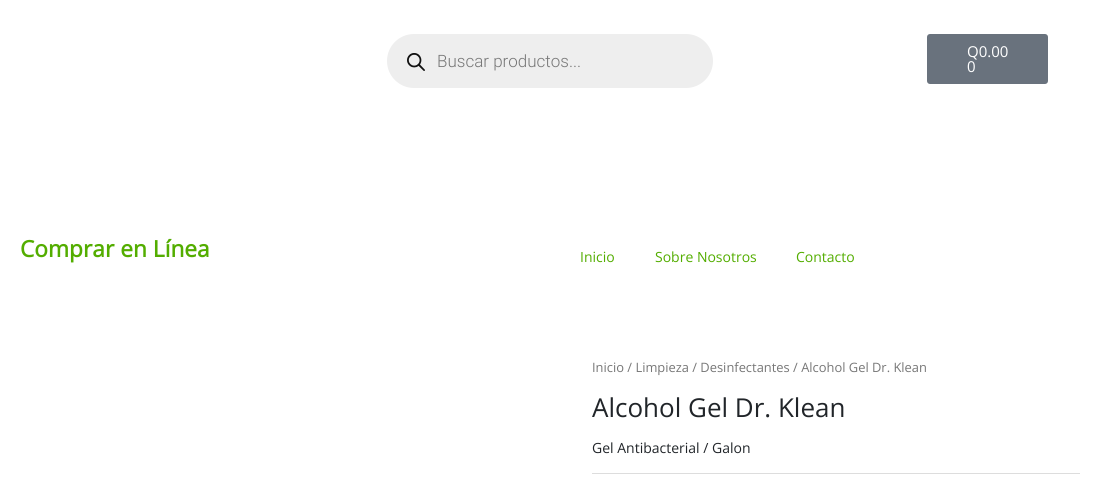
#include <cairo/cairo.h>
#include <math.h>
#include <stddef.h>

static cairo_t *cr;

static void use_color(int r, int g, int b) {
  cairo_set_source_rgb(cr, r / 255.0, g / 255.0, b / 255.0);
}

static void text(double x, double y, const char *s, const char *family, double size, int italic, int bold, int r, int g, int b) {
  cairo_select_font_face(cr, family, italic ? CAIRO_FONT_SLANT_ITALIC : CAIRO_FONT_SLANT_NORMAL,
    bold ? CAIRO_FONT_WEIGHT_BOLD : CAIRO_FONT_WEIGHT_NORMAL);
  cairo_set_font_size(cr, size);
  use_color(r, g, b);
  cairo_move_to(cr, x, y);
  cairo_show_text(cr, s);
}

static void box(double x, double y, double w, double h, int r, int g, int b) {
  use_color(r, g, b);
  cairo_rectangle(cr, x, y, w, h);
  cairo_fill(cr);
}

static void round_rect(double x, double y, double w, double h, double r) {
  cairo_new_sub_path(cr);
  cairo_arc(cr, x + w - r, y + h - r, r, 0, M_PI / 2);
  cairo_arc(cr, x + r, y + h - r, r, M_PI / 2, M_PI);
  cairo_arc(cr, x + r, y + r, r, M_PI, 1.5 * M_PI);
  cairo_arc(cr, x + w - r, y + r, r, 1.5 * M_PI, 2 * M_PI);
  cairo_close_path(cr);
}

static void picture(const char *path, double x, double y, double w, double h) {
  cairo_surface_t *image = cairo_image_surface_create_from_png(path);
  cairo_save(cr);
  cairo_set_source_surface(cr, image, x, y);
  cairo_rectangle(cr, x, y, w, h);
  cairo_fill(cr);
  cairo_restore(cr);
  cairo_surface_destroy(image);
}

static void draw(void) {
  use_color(255, 255, 255);
  cairo_paint(cr);
  use_color(238, 238, 238);
  round_rect(387, 34, 326, 54, 27);
  cairo_fill(cr);
  picture("img_01.png", 407, 53, 18, 18);
  use_color(105, 114, 125);
  round_rect(927, 34, 121, 50, 3);
  cairo_fill(cr);
  box(592, 473, 488, 1, 221, 221, 221);
  text(437, 67, "Buscar productos...", "Roboto Light", 17, 0, 0, 119, 119, 119);
  text(967, 57, "Q0.00", "Open Sans", 15, 0, 0, 255, 255, 255);
  text(967, 72, "0", "Open Sans", 15, 0, 0, 255, 255, 255);
  text(20, 257, "Comprar en Línea", "Open Sans", 22.75, 0, 1, 83, 173, 0);
  text(580, 262, "Inicio", "Open Sans", 14, 0, 0, 83, 173, 0);
  text(655, 262, "Sobre Nosotros", "Open Sans", 14, 0, 0, 83, 173, 0);
  text(796, 262, "Contacto", "Open Sans", 14, 0, 0, 83, 173, 0);
  text(592, 372, "Inicio / Limpieza / Desinfectantes / Alcohol Gel Dr. Klean", "Open Sans", 12.9, 0, 0, 119, 119, 119);
  text(592, 417, "Alcohol Gel Dr. Klean", "Open Sans", 26, 0, 0, 33, 37, 41);
  text(592, 453, "Gel Antibacterial / Galon", "Open Sans", 14, 0, 0, 33, 37, 41);
}

int main(void) {
  cairo_surface_t *surface = cairo_image_surface_create(CAIRO_FORMAT_RGB24, 1100, 487);
  cr = cairo_create(surface);
  cairo_font_options_t *options = cairo_font_options_create();
  cairo_font_options_set_hint_metrics(options, CAIRO_HINT_METRICS_OFF);
  cairo_font_options_set_hint_style(options, CAIRO_HINT_STYLE_NONE);
  cairo_set_font_options(cr, options);
  cairo_set_miter_limit(cr, 4);
  draw();
  cairo_surface_write_to_png(surface, "out.png");
  cairo_font_options_destroy(options);
  cairo_destroy(cr);
  cairo_surface_destroy(surface);
  return 0;
}
